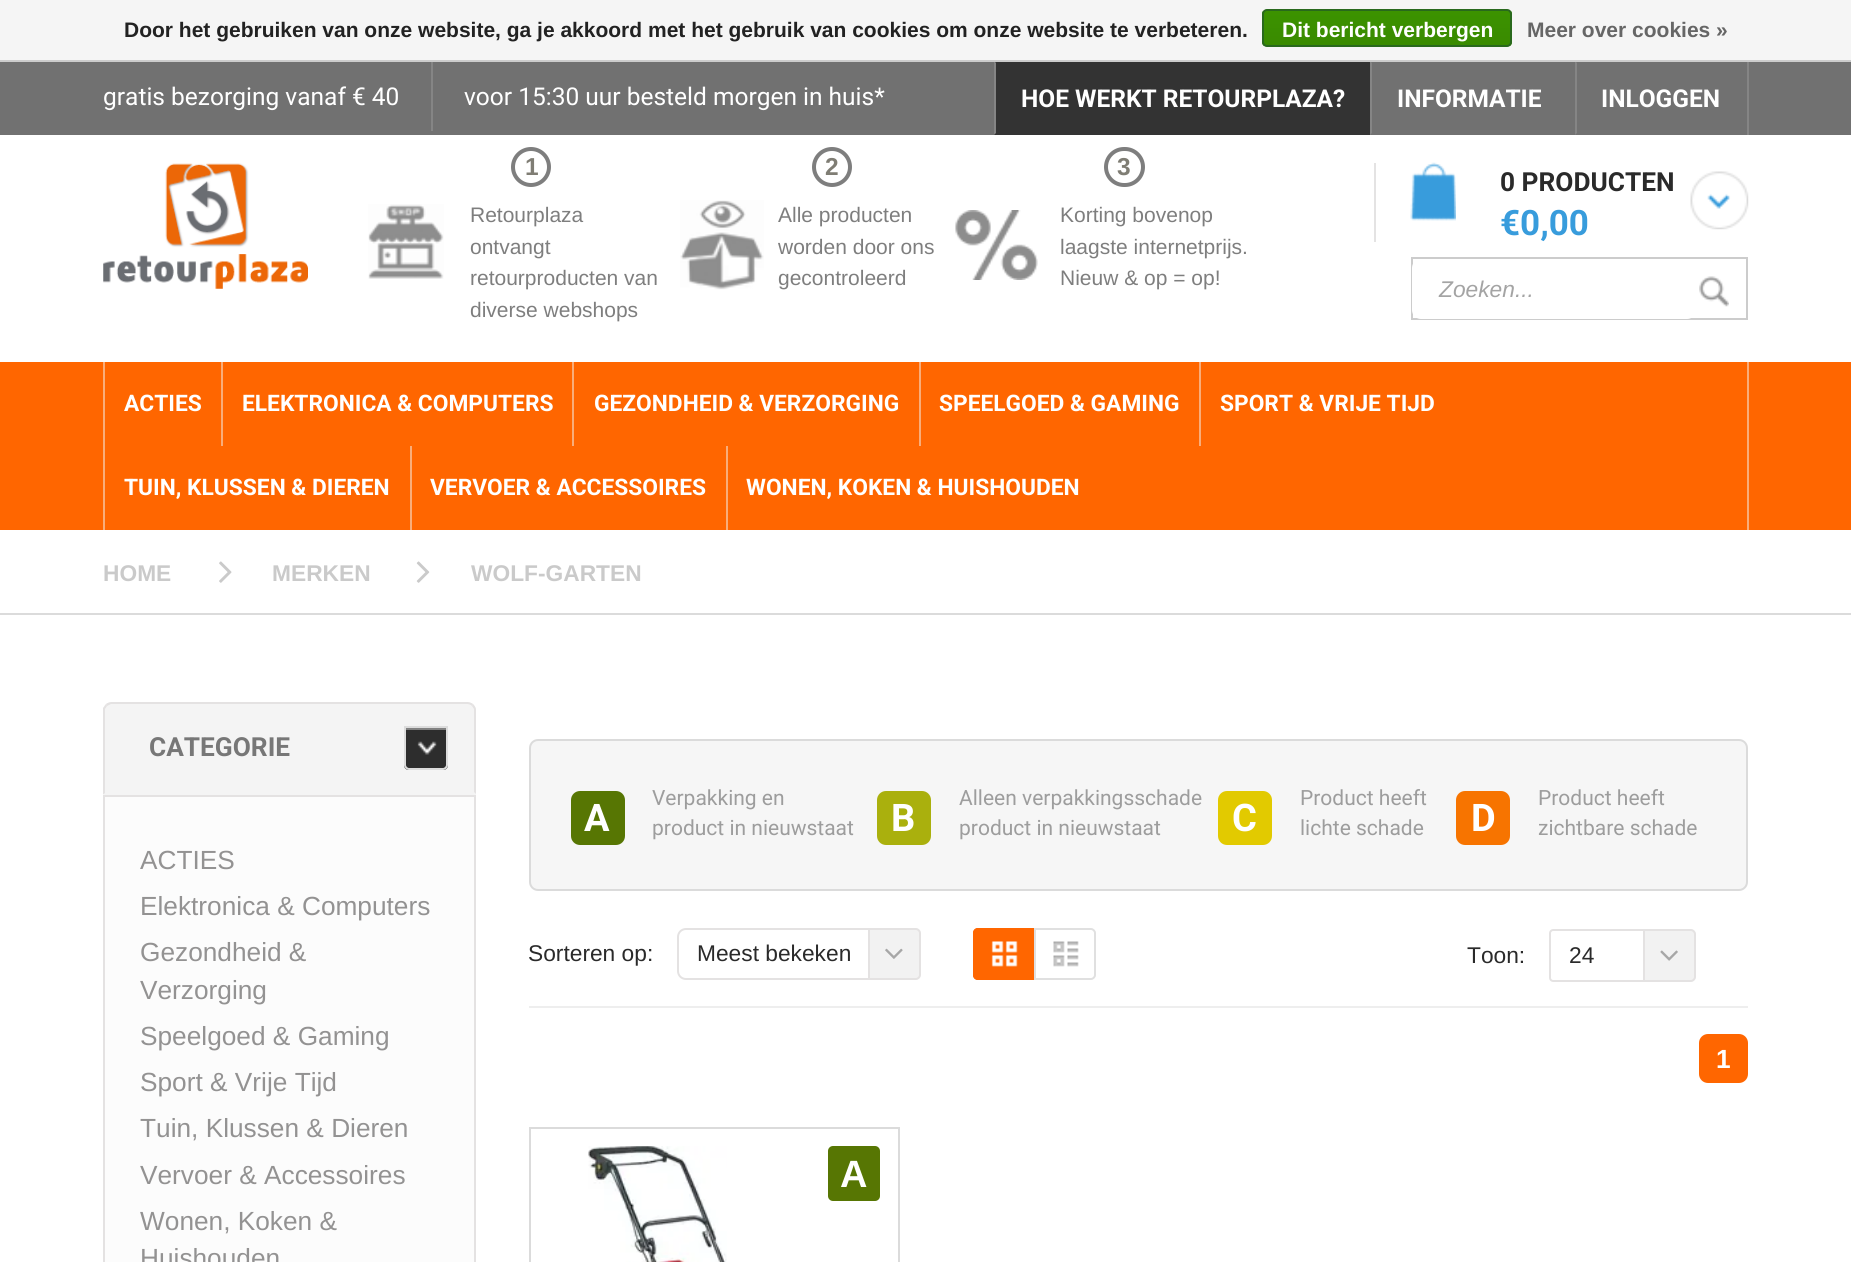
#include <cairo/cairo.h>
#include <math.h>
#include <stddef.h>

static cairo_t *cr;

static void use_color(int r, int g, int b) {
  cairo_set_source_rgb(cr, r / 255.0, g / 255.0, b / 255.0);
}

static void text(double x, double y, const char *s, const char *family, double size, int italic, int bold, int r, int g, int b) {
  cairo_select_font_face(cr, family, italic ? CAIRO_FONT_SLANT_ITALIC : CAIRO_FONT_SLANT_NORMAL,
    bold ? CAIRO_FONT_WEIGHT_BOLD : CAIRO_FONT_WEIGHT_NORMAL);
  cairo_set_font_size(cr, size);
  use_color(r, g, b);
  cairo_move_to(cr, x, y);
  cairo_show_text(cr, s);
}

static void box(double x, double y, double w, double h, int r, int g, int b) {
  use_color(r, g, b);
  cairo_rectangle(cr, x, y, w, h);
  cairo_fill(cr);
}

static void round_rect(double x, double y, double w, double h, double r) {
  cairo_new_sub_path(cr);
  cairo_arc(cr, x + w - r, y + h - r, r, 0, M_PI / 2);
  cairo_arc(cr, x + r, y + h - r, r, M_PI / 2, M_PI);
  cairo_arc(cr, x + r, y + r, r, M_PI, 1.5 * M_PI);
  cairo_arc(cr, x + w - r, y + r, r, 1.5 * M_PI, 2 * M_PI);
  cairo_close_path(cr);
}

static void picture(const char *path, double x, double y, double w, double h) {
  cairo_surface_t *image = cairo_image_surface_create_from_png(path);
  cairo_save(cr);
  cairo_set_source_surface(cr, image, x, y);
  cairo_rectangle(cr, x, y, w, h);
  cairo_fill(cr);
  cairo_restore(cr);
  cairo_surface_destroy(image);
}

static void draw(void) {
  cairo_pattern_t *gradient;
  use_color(255, 255, 255);
  cairo_paint(cr);
  box(0, 0, 1851, 60, 245, 245, 245);
  box(0, 62, 1851, 73, 113, 113, 113);
  box(431, 61, 2, 70, 133, 133, 133);
  box(1747, 61, 2, 74, 133, 133, 133);
  box(994, 62, 376, 73, 51, 51, 51);
  use_color(133, 133, 133);
  cairo_new_path(cr);
  cairo_move_to(cr, 994, 135);
  cairo_line_to(cr, 994, 61);
  cairo_line_to(cr, 996, 63);
  cairo_line_to(cr, 996, 133);
  cairo_close_path(cr);
  cairo_fill(cr);
  cairo_new_path(cr);
  cairo_move_to(cr, 1370, 135);
  cairo_line_to(cr, 1370, 61);
  cairo_line_to(cr, 1372, 63);
  cairo_line_to(cr, 1372, 133);
  cairo_close_path(cr);
  cairo_fill(cr);
  cairo_new_path(cr);
  cairo_move_to(cr, 1575, 135);
  cairo_line_to(cr, 1575, 61);
  cairo_line_to(cr, 1577, 63);
  cairo_line_to(cr, 1577, 133);
  cairo_close_path(cr);
  cairo_fill(cr);
  box(0, 60, 1851, 2, 204, 204, 204);
  cairo_save(cr);
  round_rect(1262, 9, 250, 38, 5);
  cairo_clip(cr);
  gradient = cairo_pattern_create_linear(1387, 10, 1387, 46);
  cairo_pattern_add_color_stop_rgba(gradient, 0, 0.235, 0.576, 0, 1);
  cairo_pattern_add_color_stop_rgba(gradient, 1, 0.224, 0.541, 0, 1);
  cairo_set_source(cr, gradient);
  cairo_pattern_destroy(gradient);
  cairo_rectangle(cr, 1262, 11, 250, 35);
  cairo_fill(cr);
  cairo_restore(cr);
  round_rect(1263, 10, 248, 36, 4);
  use_color(41, 105, 29);
  cairo_stroke(cr);
  picture("img_01.png", 103, 163, 205, 126);
  cairo_arc(cr, 531, 167, 18, 0, 2 * M_PI);
  use_color(126, 126, 126);
  cairo_set_line_width(cr, 4);
  cairo_stroke(cr);
  picture("img_02.png", 368, 204, 76, 75);
  cairo_arc(cr, 832, 167, 18, 0, 2 * M_PI);
  cairo_stroke(cr);
  picture("img_03.png", 680, 200, 84, 90);
  round_rect(1106, 149, 37, 36, 18);
  cairo_stroke(cr);
  picture("img_04.png", 955, 210, 83, 70);
  box(1374, 163, 2, 79, 228, 227, 227);
  picture("img_05.png", 1410, 162, 46, 59);
  picture("img_06.png", 1690, 171, 59, 59);
  cairo_rectangle(cr, 1412, 258, 335, 61);
  use_color(204, 204, 204);
  cairo_set_line_width(cr, 2);
  cairo_stroke(cr);
  use_color(255, 255, 255);
  round_rect(1412, 259, 284, 60, 9);
  cairo_fill(cr);
  picture("img_07.png", 1699, 276, 30, 31);
  box(0, 362, 1851, 168, 255, 102, 0);
  box(1747, 362, 2, 168, 249, 173, 122);
  box(103, 362, 2, 168, 249, 173, 122);
  box(221, 362, 2, 84, 249, 173, 122);
  box(572, 362, 2, 84, 249, 173, 122);
  box(919, 362, 2, 84, 249, 173, 122);
  box(1199, 362, 2, 84, 249, 173, 122);
  box(410, 446, 2, 84, 249, 173, 122);
  box(726, 446, 2, 84, 249, 173, 122);
  box(0, 613, 1851, 2, 219, 219, 219);
  picture("img_08.png", 219, 561, 13, 22);
  picture("img_09.png", 416, 561, 14, 22);
  box(103, 795, 373, 2, 228, 226, 226);
  cairo_new_path(cr);
  cairo_move_to(cr, 476, 794);
  cairo_line_to(cr, 476, 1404);
  cairo_line_to(cr, 474, 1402);
  cairo_line_to(cr, 474, 796);
  cairo_close_path(cr);
  cairo_fill(cr);
  cairo_new_path(cr);
  cairo_move_to(cr, 103, 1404);
  cairo_line_to(cr, 103, 794);
  cairo_line_to(cr, 105, 796);
  cairo_line_to(cr, 105, 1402);
  cairo_close_path(cr);
  cairo_fill(cr);
  use_color(244, 244, 244);
  cairo_new_path(cr);
  cairo_move_to(cr, 112, 702);
  cairo_line_to(cr, 467, 702);
  cairo_curve_to(cr, 472, 702, 476, 706, 476, 711);
  cairo_line_to(cr, 476, 795);
  cairo_line_to(cr, 103, 795);
  cairo_line_to(cr, 103, 711);
  cairo_curve_to(cr, 103, 706, 107, 702, 112, 702);
  cairo_close_path(cr);
  cairo_fill(cr);
  use_color(228, 226, 226);
  cairo_new_path(cr);
  cairo_move_to(cr, 112, 702);
  cairo_curve_to(cr, 110, 702, 107, 703, 106, 704);
  cairo_line_to(cr, 107, 706);
  cairo_line_to(cr, 111, 704);
  cairo_line_to(cr, 467, 704);
  cairo_curve_to(cr, 469, 704, 471, 705, 472, 706);
  cairo_line_to(cr, 473, 704);
  cairo_curve_to(cr, 472, 703, 469, 702, 467, 702);
  cairo_close_path(cr);
  cairo_fill(cr);
  cairo_new_path(cr);
  cairo_move_to(cr, 473, 704);
  cairo_curve_to(cr, 475, 706, 476, 708, 476, 710);
  cairo_line_to(cr, 476, 794);
  cairo_line_to(cr, 474, 792);
  cairo_line_to(cr, 474, 709);
  cairo_line_to(cr, 472, 706);
  cairo_close_path(cr);
  cairo_fill(cr);
  cairo_new_path(cr);
  cairo_move_to(cr, 103, 708);
  cairo_line_to(cr, 106, 704);
  cairo_line_to(cr, 107, 706);
  cairo_line_to(cr, 105, 709);
  cairo_line_to(cr, 105, 793);
  cairo_line_to(cr, 104, 794);
  cairo_line_to(cr, 103, 794);
  cairo_close_path(cr);
  cairo_fill(cr);
  use_color(45, 45, 45);
  cairo_new_path(cr);
  cairo_move_to(cr, 404, 726);
  cairo_line_to(cr, 448, 726);
  cairo_line_to(cr, 448, 765);
  cairo_curve_to(cr, 448, 768, 446, 770, 443, 770);
  cairo_line_to(cr, 409, 770);
  cairo_curve_to(cr, 406, 770, 404, 768, 404, 765);
  cairo_close_path(cr);
  cairo_fill(cr);
  picture("img_10.png", 417, 741, 20, 14);
  box(406, 728, 40, 2, 129, 129, 129);
  cairo_new_path(cr);
  cairo_move_to(cr, 405, 727);
  cairo_line_to(cr, 447, 727);
  cairo_line_to(cr, 447, 765);
  cairo_curve_to(cr, 447, 767, 445, 769, 443, 769);
  cairo_line_to(cr, 409, 769);
  cairo_curve_to(cr, 407, 769, 405, 767, 405, 765);
  cairo_close_path(cr);
  use_color(220, 220, 220);
  cairo_stroke(cr);
  box(105, 797, 369, 465, 252, 252, 252);
  use_color(246, 246, 246);
  round_rect(530, 740, 1217, 150, 8);
  cairo_fill_preserve(cr);
  use_color(219, 219, 219);
  cairo_stroke(cr);
  use_color(87, 118, 3);
  round_rect(571, 791, 54, 54, 9);
  cairo_fill(cr);
  use_color(170, 176, 13);
  round_rect(877, 791, 54, 54, 9);
  cairo_fill(cr);
  use_color(226, 202, 0);
  round_rect(1218, 791, 54, 54, 9);
  cairo_fill(cr);
  use_color(247, 116, 0);
  round_rect(1456, 791, 54, 54, 9);
  cairo_fill(cr);
  cairo_new_path(cr);
  cairo_move_to(cr, 686, 929);
  cairo_line_to(cr, 869, 929);
  cairo_line_to(cr, 869, 979);
  cairo_line_to(cr, 686, 979);
  cairo_curve_to(cr, 681.5, 979, 678, 975.5, 678, 971);
  cairo_line_to(cr, 678, 937);
  cairo_curve_to(cr, 678, 932.5, 681.5, 929, 686, 929);
  cairo_close_path(cr);
  use_color(228, 226, 226);
  cairo_stroke(cr);
  use_color(242, 242, 242);
  cairo_new_path(cr);
  cairo_move_to(cr, 869, 929);
  cairo_line_to(cr, 916, 929);
  cairo_curve_to(cr, 918, 929, 920, 931, 920, 933);
  cairo_line_to(cr, 920, 975);
  cairo_curve_to(cr, 920, 977, 918, 979, 916, 979);
  cairo_line_to(cr, 869, 979);
  cairo_close_path(cr);
  cairo_fill_preserve(cr);
  use_color(228, 226, 226);
  cairo_stroke(cr);
  picture("img_11.png", 885, 948, 18, 11);
  use_color(255, 102, 0);
  cairo_new_path(cr);
  cairo_move_to(cr, 978, 928);
  cairo_line_to(cr, 1034, 928);
  cairo_line_to(cr, 1034, 980);
  cairo_line_to(cr, 978, 980);
  cairo_curve_to(cr, 975, 980, 973, 978, 973, 975);
  cairo_line_to(cr, 973, 933);
  cairo_curve_to(cr, 973, 930, 975, 928, 978, 928);
  cairo_close_path(cr);
  cairo_fill(cr);
  picture("img_12.png", 991, 941, 27, 26);
  cairo_new_path(cr);
  cairo_move_to(cr, 978, 929);
  cairo_line_to(cr, 1033, 929);
  cairo_line_to(cr, 1033, 979);
  cairo_line_to(cr, 978, 979);
  cairo_curve_to(cr, 976, 979, 974, 977, 974, 975);
  cairo_line_to(cr, 974, 933);
  cairo_curve_to(cr, 974, 931, 976, 929, 978, 929);
  cairo_close_path(cr);
  cairo_stroke(cr);
  picture("img_13.png", 1053, 941, 26, 26);
  cairo_new_path(cr);
  cairo_move_to(cr, 1035, 929);
  cairo_line_to(cr, 1091, 929);
  cairo_curve_to(cr, 1093, 929, 1095, 931, 1095, 933);
  cairo_line_to(cr, 1095, 975);
  cairo_curve_to(cr, 1095, 977, 1093, 979, 1091, 979);
  cairo_line_to(cr, 1035, 979);
  cairo_close_path(cr);
  use_color(224, 224, 224);
  cairo_stroke(cr);
  box(529, 1006, 1219, 2, 238, 238, 238);
  cairo_new_path(cr);
  cairo_move_to(cr, 1553, 930);
  cairo_line_to(cr, 1644, 930);
  cairo_line_to(cr, 1644, 981);
  cairo_line_to(cr, 1553, 981);
  cairo_curve_to(cr, 1551.5, 981, 1550, 979.5, 1550, 978);
  cairo_line_to(cr, 1550, 933);
  cairo_curve_to(cr, 1550, 931.5, 1551.5, 930, 1553, 930);
  cairo_close_path(cr);
  use_color(228, 226, 226);
  cairo_stroke(cr);
  use_color(242, 242, 242);
  cairo_new_path(cr);
  cairo_move_to(cr, 1644, 930);
  cairo_line_to(cr, 1691, 930);
  cairo_curve_to(cr, 1693, 930, 1695, 932, 1695, 934);
  cairo_line_to(cr, 1695, 977);
  cairo_curve_to(cr, 1695, 979, 1693, 981, 1691, 981);
  cairo_line_to(cr, 1644, 981);
  cairo_close_path(cr);
  cairo_fill_preserve(cr);
  use_color(228, 226, 226);
  cairo_stroke(cr);
  picture("img_14.png", 1660, 950, 18, 11);
  use_color(255, 102, 0);
  round_rect(1699, 1034, 49, 49, 9);
  cairo_fill(cr);
  cairo_rectangle(cr, 530, 1128, 369, 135);
  use_color(219, 219, 219);
  cairo_stroke(cr);
  picture("img_15.png", 588, 1146, 139, 116);
  use_color(87, 118, 3);
  round_rect(828, 1146, 52, 55, 5);
  cairo_fill(cr);
  text(124, 37, "Door het gebruiken van onze website, ga je akkoord met het gebruik van cookies om onze website te verbeteren.", "Liberation Sans", 21, 0, 1, 34, 34, 34);
  text(1282, 37, "Dit bericht verbergen", "Liberation Sans", 21, 0, 1, 255, 255, 255);
  text(1527, 37, "Meer over cookies »", "Liberation Sans", 21, 0, 1, 102, 102, 102);
  text(103, 105, "gratis bezorging vanaf € 40", "Roboto", 24.5, 0, 0, 255, 255, 255);
  text(464, 105, "voor 15:30 uur besteld morgen in huis*", "Roboto", 24.5, 0, 0, 255, 255, 255);
  text(1021, 107, "HOE WERKT RETOURPLAZA?", "Roboto", 24.5, 0, 1, 255, 255, 255);
  text(1397, 107, "INFORMATIE", "Roboto", 24.5, 0, 1, 255, 255, 255);
  text(1601, 107, "INLOGGEN", "Roboto", 24.5, 0, 1, 255, 255, 255);
  text(525, 175, "1", "Liberation Sans", 24.5, 0, 1, 127, 125, 116);
  text(470, 222, "Retourplaza", "Liberation Sans", 21, 0, 0, 126, 126, 126);
  text(470, 254, "ontvangt", "Liberation Sans", 21, 0, 0, 126, 126, 126);
  text(470, 285, "retourproducten van", "Liberation Sans", 21, 0, 0, 126, 126, 126);
  text(470, 317, "diverse webshops", "Liberation Sans", 21, 0, 0, 126, 126, 126);
  text(825, 175, "2", "Liberation Sans", 24.5, 0, 1, 127, 125, 116);
  text(778, 222, "Alle producten", "Liberation Sans", 21, 0, 0, 126, 126, 126);
  text(778, 254, "worden door ons", "Liberation Sans", 21, 0, 0, 126, 126, 126);
  text(778, 285, "gecontroleerd", "Liberation Sans", 21, 0, 0, 126, 126, 126);
  text(1117, 175, "3", "Liberation Sans", 24.5, 0, 1, 127, 125, 116);
  text(1060, 222, "Korting bovenop", "Liberation Sans", 21, 0, 0, 126, 126, 126);
  text(1060, 254, "laagste internetprijs.", "Liberation Sans", 21, 0, 0, 126, 126, 126);
  text(1060, 285, "Nieuw & op = op!", "Liberation Sans", 21, 0, 0, 126, 126, 126);
  text(1500, 191, "0 PRODUCTEN", "Roboto", 26.25, 0, 1, 42, 42, 42);
  text(1500, 235, "€0,00", "Roboto", 35, 0, 1, 56, 156, 220);
  text(1439, 297, "Zoeken...", "Liberation Sans", 22.75, 1, 0, 164, 164, 164);
  text(124, 411, "ACTIES", "Roboto", 22.75, 0, 1, 255, 255, 255);
  text(242, 411, "ELEKTRONICA & COMPUTERS", "Roboto", 22.75, 0, 1, 255, 255, 255);
  text(594, 411, "GEZONDHEID & VERZORGING", "Roboto", 22.75, 0, 1, 255, 255, 255);
  text(939, 411, "SPEELGOED & GAMING", "Roboto", 22.75, 0, 1, 255, 255, 255);
  text(1220, 411, "SPORT & VRIJE TIJD", "Roboto", 22.75, 0, 1, 255, 255, 255);
  text(124, 495, "TUIN, KLUSSEN & DIEREN", "Roboto", 22.75, 0, 1, 255, 255, 255);
  text(430, 495, "VERVOER & ACCESSOIRES", "Roboto", 22.75, 0, 1, 255, 255, 255);
  text(746, 495, "WONEN, KOKEN & HUISHOUDEN", "Roboto", 22.75, 0, 1, 255, 255, 255);
  text(103, 581, "HOME", "Liberation Sans", 22.75, 0, 1, 202, 202, 202);
  text(272, 581, "MERKEN", "Liberation Sans", 22.75, 0, 1, 202, 202, 202);
  text(471, 581, "WOLF-GARTEN", "Liberation Sans", 22.75, 0, 1, 202, 202, 202);
  text(149, 756, "CATEGORIE", "Roboto", 26.25, 0, 1, 119, 119, 119);
  text(140, 869, "ACTIES", "Liberation Sans", 26.25, 0, 0, 147, 146, 146);
  text(140, 915, "Elektronica & Computers", "Liberation Sans", 26.25, 0, 0, 147, 146, 146);
  text(140, 961, "Gezondheid &", "Liberation Sans", 26.25, 0, 0, 147, 146, 146);
  text(140, 999, "Verzorging", "Liberation Sans", 26.25, 0, 0, 147, 146, 146);
  text(140, 1045, "Speelgoed & Gaming", "Liberation Sans", 26.25, 0, 0, 147, 146, 146);
  text(140, 1091, "Sport & Vrije Tijd", "Liberation Sans", 26.25, 0, 0, 147, 146, 146);
  text(140, 1137, "Tuin, Klussen & Dieren", "Liberation Sans", 26.25, 0, 0, 147, 146, 146);
  text(140, 1184, "Vervoer & Accessoires", "Liberation Sans", 26.25, 0, 0, 147, 146, 146);
  text(140, 1230, "Wonen, Koken &", "Liberation Sans", 26.25, 0, 0, 147, 146, 146);
  text(140, 1267, "Huishouden", "Liberation Sans", 26.25, 0, 0, 147, 146, 146);
  text(652, 805, "Verpakking en", "Roboto", 21, 0, 0, 157, 157, 157);
  text(584, 831, "A", "Roboto", 38, 0, 1, 255, 255, 255);
  text(652, 835, "product in nieuwstaat", "Roboto", 21, 0, 0, 157, 157, 157);
  text(959, 805, "Alleen verpakkingsschade", "Roboto", 21, 0, 0, 157, 157, 157);
  text(891, 831, "B", "Roboto", 38, 0, 1, 255, 255, 255);
  text(959, 835, "product in nieuwstaat", "Roboto", 21, 0, 0, 157, 157, 157);
  text(1300, 805, "Product heeft", "Roboto", 21, 0, 0, 157, 157, 157);
  text(1232, 831, "C", "Roboto", 38, 0, 1, 255, 255, 255);
  text(1300, 835, "lichte schade", "Roboto", 21, 0, 0, 157, 157, 157);
  text(1538, 805, "Product heeft", "Roboto", 21, 0, 0, 157, 157, 157);
  text(1471, 831, "D", "Roboto", 38, 0, 1, 255, 255, 255);
  text(1538, 835, "zichtbare schade", "Roboto", 21, 0, 0, 157, 157, 157);
  text(528, 961, "Sorteren op:", "Liberation Sans", 22.75, 0, 0, 42, 42, 42);
  text(697, 961, "Meest bekeken", "Liberation Sans", 22.75, 0, 0, 42, 42, 42);
  text(1467, 963, "Toon:", "Liberation Sans", 22.75, 0, 0, 42, 42, 42);
  text(1569, 963, "24", "Liberation Sans", 22.75, 0, 0, 42, 42, 42);
  text(1716, 1068, "1", "Liberation Sans", 26.25, 0, 1, 255, 255, 255);
  text(840, 1187, "A", "Liberation Sans", 38, 0, 1, 255, 255, 255);
}

int main(void) {
  cairo_surface_t *surface = cairo_image_surface_create(CAIRO_FORMAT_RGB24, 1851, 1262);
  cr = cairo_create(surface);
  cairo_font_options_t *options = cairo_font_options_create();
  cairo_font_options_set_hint_metrics(options, CAIRO_HINT_METRICS_OFF);
  cairo_font_options_set_hint_style(options, CAIRO_HINT_STYLE_NONE);
  cairo_set_font_options(cr, options);
  cairo_set_miter_limit(cr, 4);
  draw();
  cairo_surface_write_to_png(surface, "out.png");
  cairo_font_options_destroy(options);
  cairo_destroy(cr);
  cairo_surface_destroy(surface);
  return 0;
}
